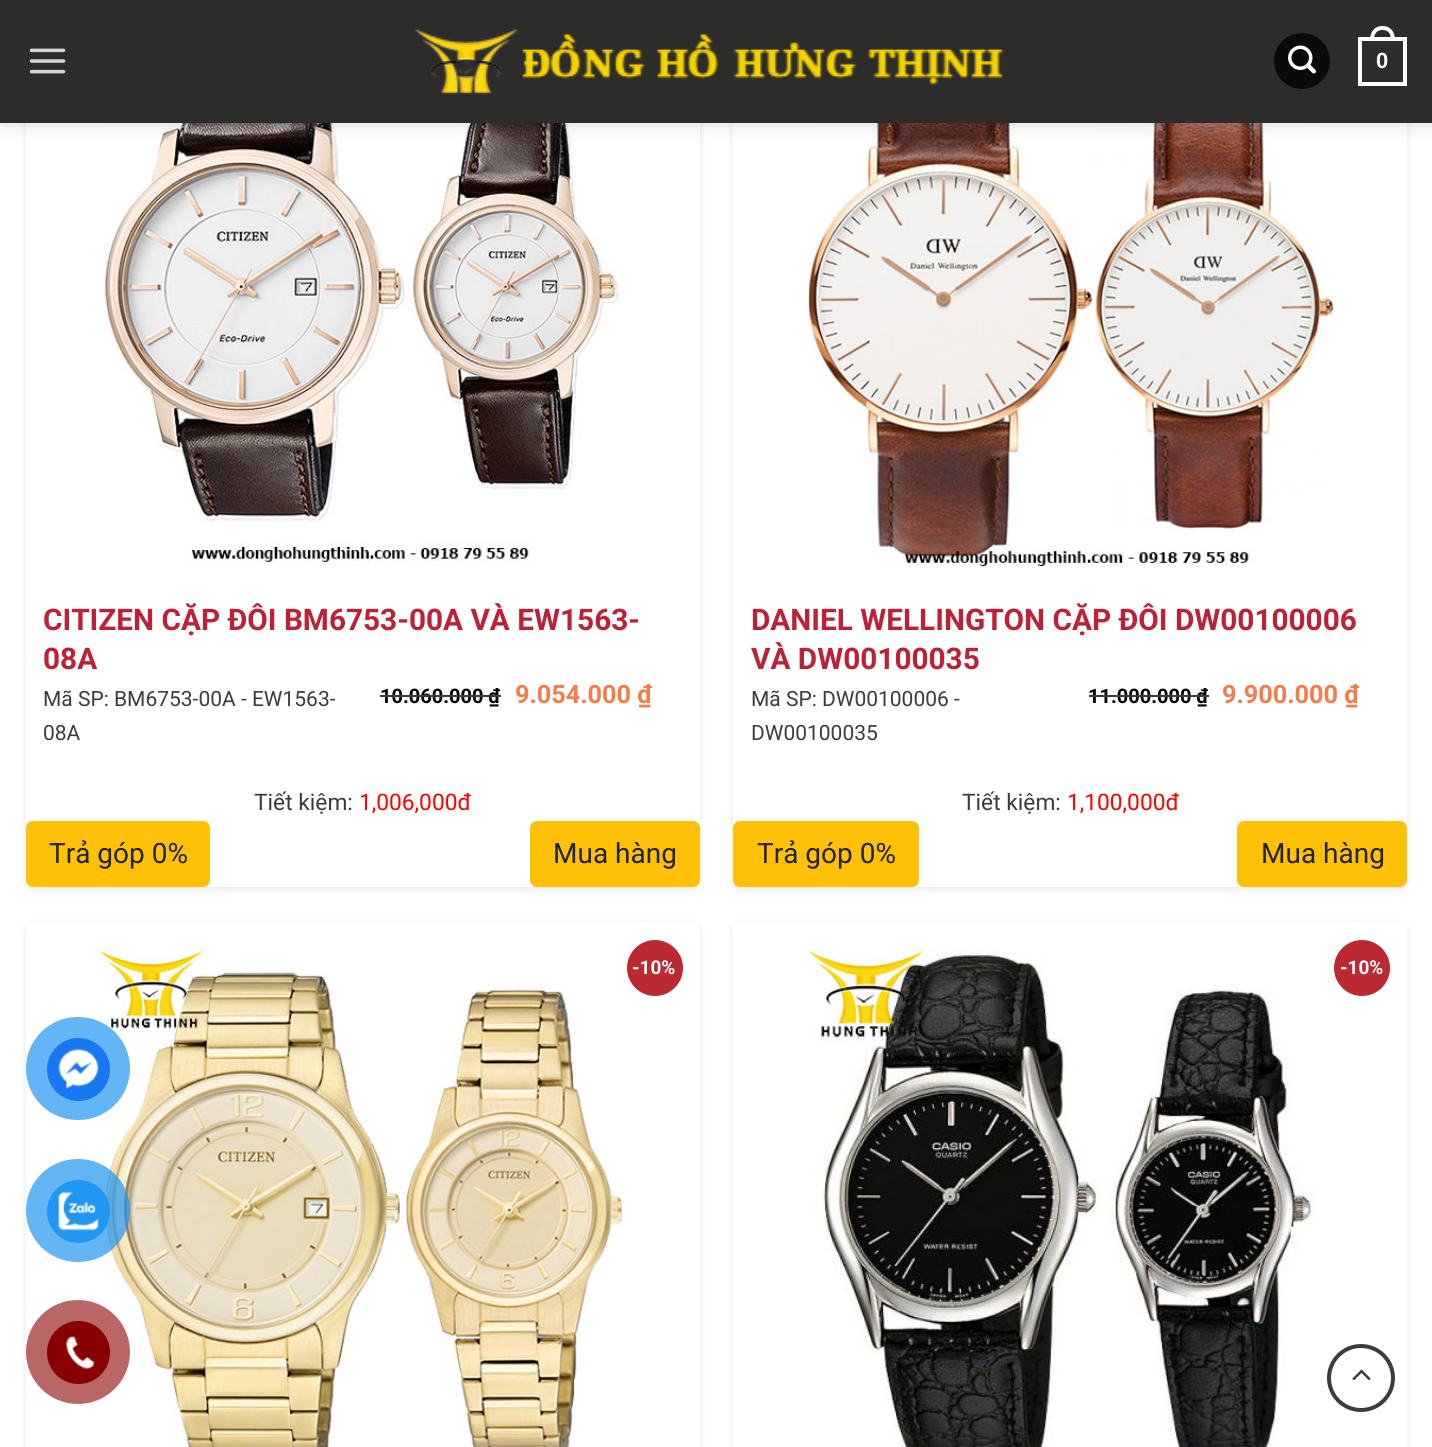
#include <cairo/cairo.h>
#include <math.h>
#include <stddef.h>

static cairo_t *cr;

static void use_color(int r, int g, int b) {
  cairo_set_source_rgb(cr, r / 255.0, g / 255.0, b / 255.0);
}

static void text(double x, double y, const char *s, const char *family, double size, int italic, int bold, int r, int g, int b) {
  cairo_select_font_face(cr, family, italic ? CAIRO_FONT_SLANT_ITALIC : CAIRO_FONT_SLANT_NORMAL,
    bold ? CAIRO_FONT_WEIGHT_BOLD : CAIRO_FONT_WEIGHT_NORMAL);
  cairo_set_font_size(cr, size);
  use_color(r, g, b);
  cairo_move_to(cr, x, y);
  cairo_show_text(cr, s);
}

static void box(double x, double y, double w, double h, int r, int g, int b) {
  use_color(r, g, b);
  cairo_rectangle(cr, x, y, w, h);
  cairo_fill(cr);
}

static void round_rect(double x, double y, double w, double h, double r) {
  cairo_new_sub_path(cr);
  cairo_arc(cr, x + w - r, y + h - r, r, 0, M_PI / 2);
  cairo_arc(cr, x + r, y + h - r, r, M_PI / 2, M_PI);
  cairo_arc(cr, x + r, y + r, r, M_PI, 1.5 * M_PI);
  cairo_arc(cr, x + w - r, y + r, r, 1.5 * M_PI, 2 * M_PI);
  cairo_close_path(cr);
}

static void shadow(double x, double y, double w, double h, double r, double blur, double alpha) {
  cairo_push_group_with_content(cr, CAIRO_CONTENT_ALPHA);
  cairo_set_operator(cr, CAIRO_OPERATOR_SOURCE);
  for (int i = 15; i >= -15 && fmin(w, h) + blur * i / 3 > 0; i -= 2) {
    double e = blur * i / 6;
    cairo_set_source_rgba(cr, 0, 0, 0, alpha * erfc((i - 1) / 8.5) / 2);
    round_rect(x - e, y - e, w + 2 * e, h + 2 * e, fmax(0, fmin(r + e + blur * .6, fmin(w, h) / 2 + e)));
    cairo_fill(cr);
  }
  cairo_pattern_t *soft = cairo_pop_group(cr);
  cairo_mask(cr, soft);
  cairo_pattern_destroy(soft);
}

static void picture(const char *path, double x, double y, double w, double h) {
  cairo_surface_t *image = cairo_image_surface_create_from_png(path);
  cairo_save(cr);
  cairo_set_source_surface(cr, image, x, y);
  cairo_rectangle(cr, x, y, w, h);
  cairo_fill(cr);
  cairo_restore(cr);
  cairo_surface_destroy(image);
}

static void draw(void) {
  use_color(255, 255, 255);
  cairo_paint(cr);
  use_color(0, 0, 0);
  shadow(26, 16, 674, 873, 7, 3.5, 0.1);
  use_color(255, 255, 255);
  round_rect(26, 14, 674, 873, 7);
  cairo_fill(cr);
  picture("img_04.png", 100, 123, 519, 443);
  use_color(0, 0, 0);
  shadow(733, 16, 674, 873, 7, 3.5, 0.1);
  use_color(255, 255, 255);
  round_rect(733, 14, 674, 873, 7);
  cairo_fill(cr);
  picture("img_05.png", 808, 123, 526, 444);
  use_color(0, 0, 0);
  shadow(2, 2, 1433, 122, 0, 9, 0.15);
  box(0, 0, 1432, 123, 44, 44, 42);
  picture("img_01.png", 29, 48, 37, 26);
  picture("img_02.png", 414, 28, 590, 67);
  use_color(10, 10, 10);
  cairo_arc(cr, 1302, 61, 28, 0, 2 * M_PI);
  cairo_fill(cr);
  picture("img_03.png", 1288, 45, 28, 29);
  cairo_rectangle(cr, 1360, 39, 45, 45);
  use_color(255, 255, 255);
  cairo_set_line_width(cr, 4);
  cairo_stroke(cr);
  cairo_set_fill_rule(cr, CAIRO_FILL_RULE_EVEN_ODD);
  cairo_new_path(cr);
  cairo_move_to(cr, 1382.5, 26);
  cairo_curve_to(cr, 1391, 26, 1395, 32.5, 1395, 40);
  cairo_line_to(cr, 1370, 40);
  cairo_curve_to(cr, 1370, 32.5, 1374, 26, 1382.5, 26);
  cairo_close_path(cr);
  cairo_move_to(cr, 1382.5, 30);
  cairo_curve_to(cr, 1389, 30, 1391, 34.5, 1391, 40);
  cairo_line_to(cr, 1374, 40);
  cairo_curve_to(cr, 1374, 34.5, 1376, 30, 1382.5, 30);
  cairo_close_path(cr);
  cairo_fill(cr);
  use_color(255, 193, 7);
  round_rect(27, 822, 182, 64, 6);
  cairo_fill_preserve(cr);
  cairo_set_line_width(cr, 2);
  cairo_stroke(cr);
  round_rect(531, 822, 168, 64, 6);
  cairo_fill_preserve(cr);
  cairo_stroke(cr);
  round_rect(734, 822, 184, 64, 6);
  cairo_fill_preserve(cr);
  cairo_stroke(cr);
  round_rect(1238, 822, 168, 64, 6);
  cairo_fill_preserve(cr);
  cairo_stroke(cr);
  use_color(0, 0, 0);
  shadow(26, 924, 674, 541, 7, 3.5, 0.1);
  use_color(255, 255, 255);
  round_rect(26, 922, 674, 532, 7);
  cairo_fill(cr);
  picture("img_06.png", 100, 948, 524, 499);
  use_color(187, 41, 49);
  cairo_arc(cr, 655, 968, 28, 0, 2 * M_PI);
  cairo_fill(cr);
  use_color(0, 0, 0);
  shadow(733, 924, 674, 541, 7, 3.5, 0.1);
  use_color(255, 255, 255);
  round_rect(733, 922, 674, 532, 7);
  cairo_fill(cr);
  picture("img_07.png", 808, 948, 507, 499);
  use_color(187, 41, 49);
  cairo_arc(cr, 1362, 968, 28, 0, 2 * M_PI);
  cairo_fill(cr);
  cairo_arc(cr, 1361, 1378, 32, 0, 2 * M_PI);
  use_color(59, 60, 61);
  cairo_set_line_width(cr, 4);
  cairo_stroke(cr);
  picture("img_08.png", 1352, 1369, 19, 12);
  cairo_set_source_rgba(cr, 0.129, 0.588, 0.953, 0.7);
  round_rect(26, 1017, 104, 103, 51.5);
  cairo_fill(cr);
  use_color(24, 119, 242);
  cairo_arc(cr, 78.5, 1069.5, 31.5, 0, 2 * M_PI);
  cairo_fill(cr);
  picture("img_09.png", 58, 1048, 41, 41);
  cairo_set_source_rgba(cr, 0.129, 0.588, 0.953, 0.7);
  round_rect(26, 1159, 104, 103, 51.5);
  cairo_fill(cr);
  use_color(33, 150, 243);
  cairo_arc(cr, 78.5, 1211.5, 31.5, 0, 2 * M_PI);
  cairo_fill(cr);
  picture("img_10.png", 58, 1191, 41, 40);
  use_color(184, 102, 102);
  cairo_arc(cr, 78, 1352, 52, 0, 2 * M_PI);
  cairo_fill(cr);
  use_color(136, 0, 0);
  cairo_arc(cr, 78.5, 1352.5, 31.5, 0, 2 * M_PI);
  cairo_fill(cr);
  picture("img_11.png", 66, 1336, 29, 34);
  text(1376, 68, "0", "Liberation Sans", 22, 0, 1, 255, 255, 255);
  text(43, 630, "CITIZEN CẶP ĐÔI BM6753-00A VÀ EW1563-", "Roboto", 29.75, 0, 1, 190, 32, 56);
  text(43, 669, "08A", "Roboto", 29.75, 0, 1, 190, 32, 56);
  text(43, 706, "Mã SP: BM6753-00A - EW1563-", "Roboto", 21, 0, 0, 59, 60, 61);
  text(43, 740, "08A", "Roboto", 21, 0, 0, 59, 60, 61);
  text(380, 703, "10.060.000 ₫", "Roboto", 20, 0, 1, 0, 0, 0);
  box(380, 695, 121, 2, 59, 60, 61);
  text(515, 703, "9.054.000 ₫", "Roboto", 25.25, 0, 1, 244, 124, 72);
  text(254, 810, "Tiết kiệm:", "Roboto", 22.75, 0, 0, 59, 60, 61);
  text(359, 810, "1,006,000đ", "Roboto", 22.75, 0, 0, 255, 0, 0);
  text(49, 863, "Trả góp 0%", "Roboto", 28, 0, 0, 33, 37, 41);
  text(553, 863, "Mua hàng", "Roboto", 28, 0, 0, 33, 37, 41);
  text(751, 630, "DANIEL WELLINGTON CẶP ĐÔI DW00100006", "Roboto", 29.75, 0, 1, 190, 32, 56);
  text(751, 669, "VÀ DW00100035", "Roboto", 29.75, 0, 1, 190, 32, 56);
  text(751, 706, "Mã SP: DW00100006 -", "Roboto", 21, 0, 0, 59, 60, 61);
  text(751, 740, "DW00100035", "Roboto", 21, 0, 0, 59, 60, 61);
  text(1088, 703, "11.000.000 ₫", "Roboto", 20, 0, 1, 0, 0, 0);
  box(1089, 695, 120, 2, 59, 60, 61);
  text(1222, 703, "9.900.000 ₫", "Roboto", 25.25, 0, 1, 244, 124, 72);
  text(962, 810, "Tiết kiệm:", "Roboto", 22.75, 0, 0, 59, 60, 61);
  text(1067, 810, "1,100,000đ", "Roboto", 22.75, 0, 0, 255, 0, 0);
  text(757, 863, "Trả góp 0%", "Roboto", 28, 0, 0, 33, 37, 41);
  text(1261, 863, "Mua hàng", "Roboto", 28, 0, 0, 33, 37, 41);
  text(632, 974, "-10%", "Roboto", 19, 0, 1, 255, 255, 255);
  text(1340, 974, "-10%", "Roboto", 19, 0, 1, 255, 255, 255);
}

int main(void) {
  cairo_surface_t *surface = cairo_image_surface_create(CAIRO_FORMAT_RGB24, 1432, 1447);
  cr = cairo_create(surface);
  cairo_font_options_t *options = cairo_font_options_create();
  cairo_font_options_set_hint_metrics(options, CAIRO_HINT_METRICS_OFF);
  cairo_font_options_set_hint_style(options, CAIRO_HINT_STYLE_NONE);
  cairo_set_font_options(cr, options);
  cairo_set_miter_limit(cr, 4);
  draw();
  cairo_surface_write_to_png(surface, "out.png");
  cairo_font_options_destroy(options);
  cairo_destroy(cr);
  cairo_surface_destroy(surface);
  return 0;
}
